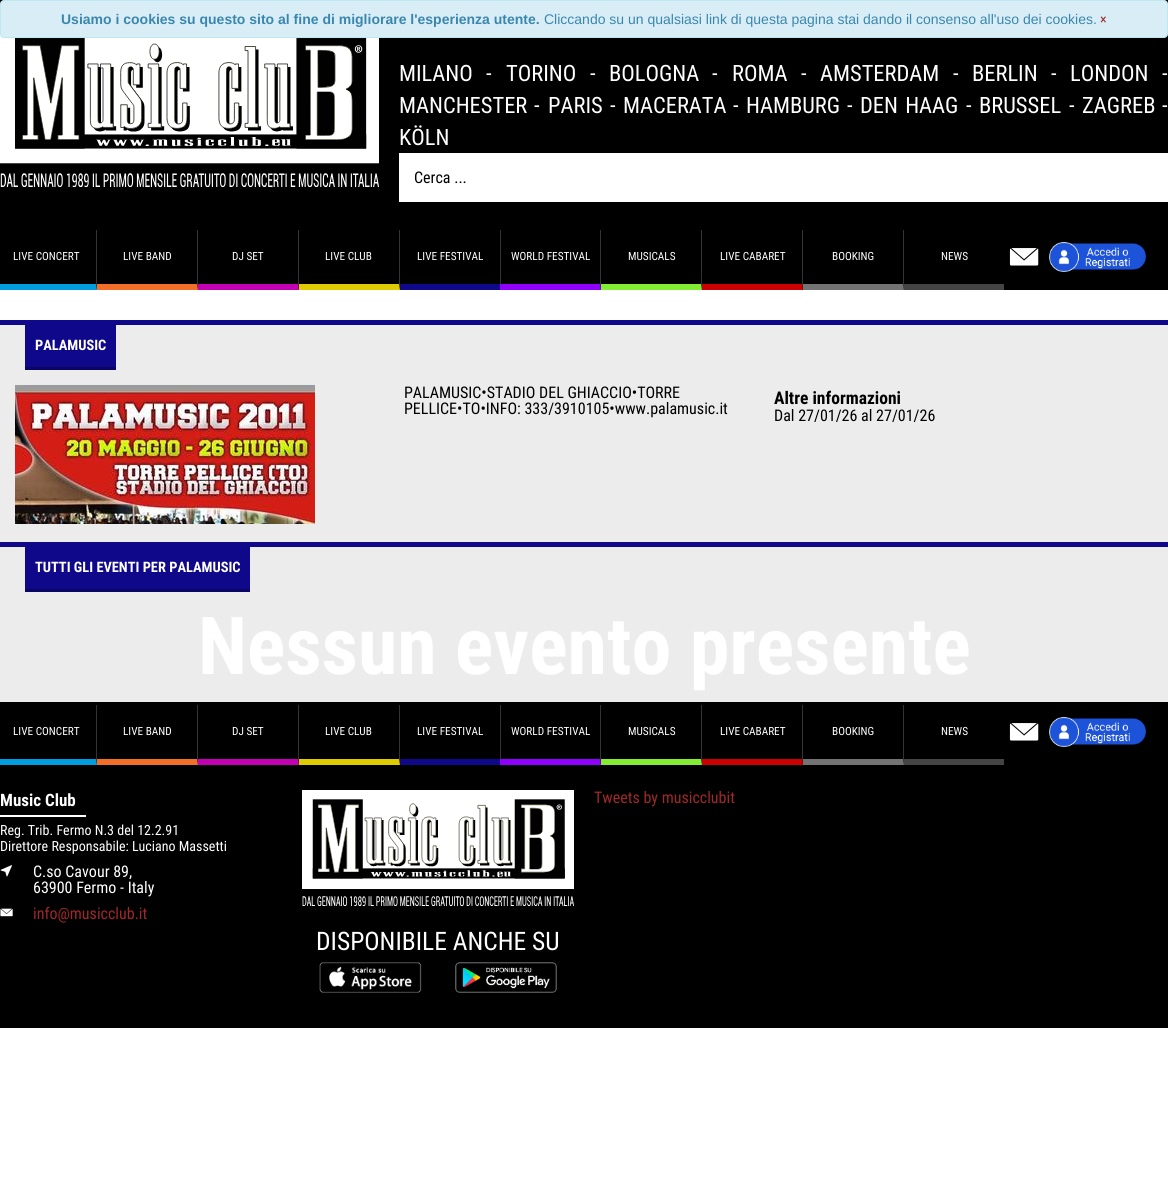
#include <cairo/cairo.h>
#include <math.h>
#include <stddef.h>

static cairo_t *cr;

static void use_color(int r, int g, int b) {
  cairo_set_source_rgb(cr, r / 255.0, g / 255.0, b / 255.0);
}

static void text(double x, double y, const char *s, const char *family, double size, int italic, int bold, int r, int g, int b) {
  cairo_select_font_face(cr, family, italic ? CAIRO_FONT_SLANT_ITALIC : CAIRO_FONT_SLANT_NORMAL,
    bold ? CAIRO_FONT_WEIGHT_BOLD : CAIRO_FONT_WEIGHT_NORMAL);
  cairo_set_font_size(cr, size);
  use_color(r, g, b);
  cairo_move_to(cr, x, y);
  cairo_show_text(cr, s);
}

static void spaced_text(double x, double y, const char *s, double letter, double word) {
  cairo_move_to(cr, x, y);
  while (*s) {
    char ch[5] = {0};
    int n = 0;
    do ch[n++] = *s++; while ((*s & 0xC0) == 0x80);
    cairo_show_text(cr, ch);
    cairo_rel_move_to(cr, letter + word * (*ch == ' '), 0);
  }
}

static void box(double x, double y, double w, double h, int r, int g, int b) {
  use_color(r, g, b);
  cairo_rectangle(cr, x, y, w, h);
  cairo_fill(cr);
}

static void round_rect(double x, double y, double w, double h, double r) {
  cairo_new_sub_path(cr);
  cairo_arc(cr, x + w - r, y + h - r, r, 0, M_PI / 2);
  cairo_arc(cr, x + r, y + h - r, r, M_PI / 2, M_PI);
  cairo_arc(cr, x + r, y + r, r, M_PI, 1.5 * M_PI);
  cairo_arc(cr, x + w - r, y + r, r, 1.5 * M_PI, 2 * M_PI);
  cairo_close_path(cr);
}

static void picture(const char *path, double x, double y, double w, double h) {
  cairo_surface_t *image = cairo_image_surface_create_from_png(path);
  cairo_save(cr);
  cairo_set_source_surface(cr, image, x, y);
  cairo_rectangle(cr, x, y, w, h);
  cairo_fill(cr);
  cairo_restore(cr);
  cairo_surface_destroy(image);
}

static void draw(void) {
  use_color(255, 255, 255);
  cairo_paint(cr);
  box(0, 0, 1168, 290, 0, 0, 0);
  picture("img_01.png", 0, 34, 379, 153);
  use_color(217, 237, 247);
  round_rect(0.5, 0.5, 1167, 37, 3.5);
  cairo_fill_preserve(cr);
  use_color(188, 232, 241);
  cairo_set_line_width(cr, 1);
  cairo_stroke(cr);
  box(399, 153, 769, 49, 255, 255, 255);
  use_color(51, 51, 51);
  cairo_new_path(cr);
  cairo_move_to(cr, 97, 230);
  cairo_line_to(cr, 97, 290);
  cairo_line_to(cr, 96, 284);
  cairo_line_to(cr, 96, 230);
  cairo_close_path(cr);
  cairo_fill(cr);
  use_color(0, 157, 223);
  cairo_new_path(cr);
  cairo_move_to(cr, 97, 290);
  cairo_line_to(cr, -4, 290);
  cairo_line_to(cr, -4, 284);
  cairo_line_to(cr, 96, 284);
  cairo_close_path(cr);
  cairo_fill(cr);
  use_color(51, 51, 51);
  cairo_new_path(cr);
  cairo_move_to(cr, 198, 230);
  cairo_line_to(cr, 198, 290);
  cairo_line_to(cr, 197, 284);
  cairo_line_to(cr, 197, 230);
  cairo_close_path(cr);
  cairo_fill(cr);
  use_color(243, 111, 40);
  cairo_new_path(cr);
  cairo_move_to(cr, 198, 290);
  cairo_line_to(cr, 97, 290);
  cairo_line_to(cr, 97, 284);
  cairo_line_to(cr, 197, 284);
  cairo_close_path(cr);
  cairo_fill(cr);
  use_color(51, 51, 51);
  cairo_new_path(cr);
  cairo_move_to(cr, 299, 230);
  cairo_line_to(cr, 299, 290);
  cairo_line_to(cr, 298, 284);
  cairo_line_to(cr, 298, 230);
  cairo_close_path(cr);
  cairo_fill(cr);
  use_color(196, 0, 180);
  cairo_new_path(cr);
  cairo_move_to(cr, 299, 290);
  cairo_line_to(cr, 198, 290);
  cairo_line_to(cr, 198, 284);
  cairo_line_to(cr, 298, 284);
  cairo_close_path(cr);
  cairo_fill(cr);
  use_color(51, 51, 51);
  cairo_new_path(cr);
  cairo_move_to(cr, 400, 230);
  cairo_line_to(cr, 400, 290);
  cairo_line_to(cr, 399, 284);
  cairo_line_to(cr, 399, 230);
  cairo_close_path(cr);
  cairo_fill(cr);
  use_color(222, 203, 0);
  cairo_new_path(cr);
  cairo_move_to(cr, 400, 290);
  cairo_line_to(cr, 299, 290);
  cairo_line_to(cr, 299, 284);
  cairo_line_to(cr, 399, 284);
  cairo_close_path(cr);
  cairo_fill(cr);
  use_color(51, 51, 51);
  cairo_new_path(cr);
  cairo_move_to(cr, 501, 230);
  cairo_line_to(cr, 501, 290);
  cairo_line_to(cr, 500, 284);
  cairo_line_to(cr, 500, 230);
  cairo_close_path(cr);
  cairo_fill(cr);
  use_color(15, 8, 138);
  cairo_new_path(cr);
  cairo_move_to(cr, 501, 290);
  cairo_line_to(cr, 400, 290);
  cairo_line_to(cr, 400, 284);
  cairo_line_to(cr, 500, 284);
  cairo_close_path(cr);
  cairo_fill(cr);
  use_color(51, 51, 51);
  cairo_new_path(cr);
  cairo_move_to(cr, 601, 230);
  cairo_line_to(cr, 601, 290);
  cairo_line_to(cr, 600, 284);
  cairo_line_to(cr, 600, 230);
  cairo_close_path(cr);
  cairo_fill(cr);
  use_color(144, 0, 255);
  cairo_new_path(cr);
  cairo_move_to(cr, 601, 290);
  cairo_line_to(cr, 500, 290);
  cairo_line_to(cr, 500, 284);
  cairo_line_to(cr, 600, 284);
  cairo_close_path(cr);
  cairo_fill(cr);
  use_color(51, 51, 51);
  cairo_new_path(cr);
  cairo_move_to(cr, 702, 230);
  cairo_line_to(cr, 702, 290);
  cairo_line_to(cr, 701, 284);
  cairo_line_to(cr, 701, 230);
  cairo_close_path(cr);
  cairo_fill(cr);
  use_color(131, 237, 51);
  cairo_new_path(cr);
  cairo_move_to(cr, 702, 290);
  cairo_line_to(cr, 601, 290);
  cairo_line_to(cr, 601, 284);
  cairo_line_to(cr, 701, 284);
  cairo_close_path(cr);
  cairo_fill(cr);
  use_color(51, 51, 51);
  cairo_new_path(cr);
  cairo_move_to(cr, 803, 230);
  cairo_line_to(cr, 803, 290);
  cairo_line_to(cr, 802, 284);
  cairo_line_to(cr, 802, 230);
  cairo_close_path(cr);
  cairo_fill(cr);
  use_color(204, 0, 0);
  cairo_new_path(cr);
  cairo_move_to(cr, 803, 290);
  cairo_line_to(cr, 702, 290);
  cairo_line_to(cr, 702, 284);
  cairo_line_to(cr, 802, 284);
  cairo_close_path(cr);
  cairo_fill(cr);
  use_color(51, 51, 51);
  cairo_new_path(cr);
  cairo_move_to(cr, 904, 230);
  cairo_line_to(cr, 904, 290);
  cairo_line_to(cr, 903, 284);
  cairo_line_to(cr, 903, 230);
  cairo_close_path(cr);
  cairo_fill(cr);
  use_color(115, 115, 115);
  cairo_new_path(cr);
  cairo_move_to(cr, 904, 290);
  cairo_line_to(cr, 803, 290);
  cairo_line_to(cr, 803, 284);
  cairo_line_to(cr, 903, 284);
  cairo_close_path(cr);
  cairo_fill(cr);
  box(904, 284, 100, 6, 68, 68, 68);
  picture("img_02.png", 1009, 248, 30, 18);
  picture("img_03.png", 1049, 242, 97, 30);
  box(0, 325, 1168, 217, 236, 236, 236);
  box(0, 320, 1168, 5, 15, 8, 138);
  box(25, 325, 91, 42, 15, 8, 138);
  box(25, 367, 91, 3, 11, 6, 99);
  picture("img_04.png", 15, 385, 300, 139);
  box(0, 547, 1168, 155, 236, 236, 236);
  box(0, 542, 1168, 5, 15, 8, 138);
  box(25, 547, 225, 42, 15, 8, 138);
  box(25, 589, 225, 3, 11, 6, 99);
  box(0, 702, 1168, 326, 0, 0, 0);
  use_color(51, 51, 51);
  cairo_new_path(cr);
  cairo_move_to(cr, 97, 705);
  cairo_line_to(cr, 97, 765);
  cairo_line_to(cr, 96, 759);
  cairo_line_to(cr, 96, 705);
  cairo_close_path(cr);
  cairo_fill(cr);
  use_color(0, 157, 223);
  cairo_new_path(cr);
  cairo_move_to(cr, 97, 765);
  cairo_line_to(cr, -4, 765);
  cairo_line_to(cr, -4, 759);
  cairo_line_to(cr, 96, 759);
  cairo_close_path(cr);
  cairo_fill(cr);
  use_color(51, 51, 51);
  cairo_new_path(cr);
  cairo_move_to(cr, 198, 705);
  cairo_line_to(cr, 198, 765);
  cairo_line_to(cr, 197, 759);
  cairo_line_to(cr, 197, 705);
  cairo_close_path(cr);
  cairo_fill(cr);
  use_color(243, 111, 40);
  cairo_new_path(cr);
  cairo_move_to(cr, 198, 765);
  cairo_line_to(cr, 97, 765);
  cairo_line_to(cr, 97, 759);
  cairo_line_to(cr, 197, 759);
  cairo_close_path(cr);
  cairo_fill(cr);
  use_color(51, 51, 51);
  cairo_new_path(cr);
  cairo_move_to(cr, 299, 705);
  cairo_line_to(cr, 299, 765);
  cairo_line_to(cr, 298, 759);
  cairo_line_to(cr, 298, 705);
  cairo_close_path(cr);
  cairo_fill(cr);
  use_color(196, 0, 180);
  cairo_new_path(cr);
  cairo_move_to(cr, 299, 765);
  cairo_line_to(cr, 198, 765);
  cairo_line_to(cr, 198, 759);
  cairo_line_to(cr, 298, 759);
  cairo_close_path(cr);
  cairo_fill(cr);
  use_color(51, 51, 51);
  cairo_new_path(cr);
  cairo_move_to(cr, 400, 705);
  cairo_line_to(cr, 400, 765);
  cairo_line_to(cr, 399, 759);
  cairo_line_to(cr, 399, 705);
  cairo_close_path(cr);
  cairo_fill(cr);
  use_color(222, 203, 0);
  cairo_new_path(cr);
  cairo_move_to(cr, 400, 765);
  cairo_line_to(cr, 299, 765);
  cairo_line_to(cr, 299, 759);
  cairo_line_to(cr, 399, 759);
  cairo_close_path(cr);
  cairo_fill(cr);
  use_color(51, 51, 51);
  cairo_new_path(cr);
  cairo_move_to(cr, 501, 705);
  cairo_line_to(cr, 501, 765);
  cairo_line_to(cr, 500, 759);
  cairo_line_to(cr, 500, 705);
  cairo_close_path(cr);
  cairo_fill(cr);
  use_color(15, 8, 138);
  cairo_new_path(cr);
  cairo_move_to(cr, 501, 765);
  cairo_line_to(cr, 400, 765);
  cairo_line_to(cr, 400, 759);
  cairo_line_to(cr, 500, 759);
  cairo_close_path(cr);
  cairo_fill(cr);
  use_color(51, 51, 51);
  cairo_new_path(cr);
  cairo_move_to(cr, 601, 705);
  cairo_line_to(cr, 601, 765);
  cairo_line_to(cr, 600, 759);
  cairo_line_to(cr, 600, 705);
  cairo_close_path(cr);
  cairo_fill(cr);
  use_color(144, 0, 255);
  cairo_new_path(cr);
  cairo_move_to(cr, 601, 765);
  cairo_line_to(cr, 500, 765);
  cairo_line_to(cr, 500, 759);
  cairo_line_to(cr, 600, 759);
  cairo_close_path(cr);
  cairo_fill(cr);
  use_color(51, 51, 51);
  cairo_new_path(cr);
  cairo_move_to(cr, 702, 705);
  cairo_line_to(cr, 702, 765);
  cairo_line_to(cr, 701, 759);
  cairo_line_to(cr, 701, 705);
  cairo_close_path(cr);
  cairo_fill(cr);
  use_color(131, 237, 51);
  cairo_new_path(cr);
  cairo_move_to(cr, 702, 765);
  cairo_line_to(cr, 601, 765);
  cairo_line_to(cr, 601, 759);
  cairo_line_to(cr, 701, 759);
  cairo_close_path(cr);
  cairo_fill(cr);
  use_color(51, 51, 51);
  cairo_new_path(cr);
  cairo_move_to(cr, 803, 705);
  cairo_line_to(cr, 803, 765);
  cairo_line_to(cr, 802, 759);
  cairo_line_to(cr, 802, 705);
  cairo_close_path(cr);
  cairo_fill(cr);
  use_color(204, 0, 0);
  cairo_new_path(cr);
  cairo_move_to(cr, 803, 765);
  cairo_line_to(cr, 702, 765);
  cairo_line_to(cr, 702, 759);
  cairo_line_to(cr, 802, 759);
  cairo_close_path(cr);
  cairo_fill(cr);
  use_color(51, 51, 51);
  cairo_new_path(cr);
  cairo_move_to(cr, 904, 705);
  cairo_line_to(cr, 904, 765);
  cairo_line_to(cr, 903, 759);
  cairo_line_to(cr, 903, 705);
  cairo_close_path(cr);
  cairo_fill(cr);
  use_color(115, 115, 115);
  cairo_new_path(cr);
  cairo_move_to(cr, 904, 765);
  cairo_line_to(cr, 803, 765);
  cairo_line_to(cr, 803, 759);
  cairo_line_to(cr, 903, 759);
  cairo_close_path(cr);
  cairo_fill(cr);
  box(904, 759, 100, 6, 68, 68, 68);
  picture("img_02.png", 1009, 723, 30, 18);
  picture("img_03.png", 1049, 717, 97, 30);
  box(0, 815, 86, 2, 255, 255, 255);
  picture("img_05.png", 0, 865, 12, 12);
  picture("img_06.png", 0, 908, 13, 9);
  picture("img_07.png", 302, 790, 272, 116);
  picture("img_08.png", 319, 962, 103, 31);
  picture("img_09.png", 455, 962, 102, 31);
  text(61, 24, "Usiamo i cookies su questo sito al fine di migliorare l'esperienza utente.", "Liberation Sans", 14, 0, 1, 58, 135, 173);
  text(544, 24, "Cliccando su un qualsiasi link di questa pagina stai dando il consenso all'uso dei cookies.", "Liberation Sans", 14, 0, 0, 58, 135, 173);
  text(1100, 24, "×", "Roboto Condensed", 14, 0, 0, 159, 40, 42);
  text(399, 81, "MILANO", "Roboto Condensed", 22.5, 0, 0, 255, 255, 255);
  text(486, 81, "-", "Roboto Condensed", 22.5, 0, 0, 255, 255, 255);
  text(506, 81, "TORINO", "Roboto Condensed", 22.5, 0, 0, 255, 255, 255);
  text(590, 81, "-", "Roboto Condensed", 22.5, 0, 0, 255, 255, 255);
  text(609, 81, "BOLOGNA", "Roboto Condensed", 22.5, 0, 0, 255, 255, 255);
  text(712, 81, "-", "Roboto Condensed", 22.5, 0, 0, 255, 255, 255);
  text(732, 81, "ROMA", "Roboto Condensed", 22.5, 0, 0, 255, 255, 255);
  text(801, 81, "-", "Roboto Condensed", 22.5, 0, 0, 255, 255, 255);
  text(820, 81, "AMSTERDAM", "Roboto Condensed", 22.5, 0, 0, 255, 255, 255);
  text(953, 81, "-", "Roboto Condensed", 22.5, 0, 0, 255, 255, 255);
  text(972, 81, "BERLIN", "Roboto Condensed", 22.5, 0, 0, 255, 255, 255);
  text(1051, 81, "-", "Roboto Condensed", 22.5, 0, 0, 255, 255, 255);
  text(1070, 81, "LONDON", "Roboto Condensed", 22.5, 0, 0, 255, 255, 255);
  text(1162, 81, "-", "Roboto Condensed", 22.5, 0, 0, 255, 255, 255);
  text(399, 113, "MANCHESTER", "Roboto Condensed", 22.5, 0, 0, 255, 255, 255);
  text(534, 113, "-", "Roboto Condensed", 22.5, 0, 0, 255, 255, 255);
  text(548, 113, "PARIS", "Roboto Condensed", 22.5, 0, 0, 255, 255, 255);
  text(610, 113, "-", "Roboto Condensed", 22.5, 0, 0, 255, 255, 255);
  text(623, 113, "MACERATA", "Roboto Condensed", 22.5, 0, 0, 255, 255, 255);
  text(733, 113, "-", "Roboto Condensed", 22.5, 0, 0, 255, 255, 255);
  text(746, 113, "HAMBURG", "Roboto Condensed", 22.5, 0, 0, 255, 255, 255);
  text(847, 113, "-", "Roboto Condensed", 22.5, 0, 0, 255, 255, 255);
  spaced_text(860, 113, "DEN HAAG", 0, 2);
  text(966, 113, "-", "Roboto Condensed", 22.5, 0, 0, 255, 255, 255);
  text(979, 113, "BRUSSEL", "Roboto Condensed", 22.5, 0, 0, 255, 255, 255);
  text(1069, 113, "-", "Roboto Condensed", 22.5, 0, 0, 255, 255, 255);
  text(1082, 113, "ZAGREB", "Roboto Condensed", 22.5, 0, 0, 255, 255, 255);
  text(1162, 113, "-", "Roboto Condensed", 22.5, 0, 0, 255, 255, 255);
  text(399, 145, "KÖLN", "Roboto Condensed", 22.5, 0, 0, 255, 255, 255);
  text(414, 183, "Cerca ...", "Roboto Condensed", 16, 0, 0, 0, 0, 0);
  text(13, 260, "LIVE CONCERT", "Roboto Condensed", 11.25, 0, 0, 255, 255, 255);
  text(123, 260, "LIVE BAND", "Roboto Condensed", 11.25, 0, 0, 255, 255, 255);
  text(232, 260, "DJ SET", "Roboto Condensed", 11.25, 0, 0, 255, 255, 255);
  text(325, 260, "LIVE CLUB", "Roboto Condensed", 11.25, 0, 0, 255, 255, 255);
  text(417, 260, "LIVE FESTIVAL", "Roboto Condensed", 11.25, 0, 0, 255, 255, 255);
  text(511, 260, "WORLD FESTIVAL", "Roboto Condensed", 11.25, 0, 0, 255, 255, 255);
  text(628, 260, "MUSICALS", "Roboto Condensed", 11.25, 0, 0, 255, 255, 255);
  text(720, 260, "LIVE CABARET", "Roboto Condensed", 11.25, 0, 0, 255, 255, 255);
  text(832, 260, "BOOKING", "Roboto Condensed", 11.25, 0, 0, 255, 255, 255);
  text(941, 260, "NEWS", "Roboto Condensed", 11.25, 0, 0, 255, 255, 255);
  text(35, 350, "PALAMUSIC", "Roboto Condensed", 14.4, 0, 1, 255, 255, 255);
  text(404, 398, "PALAMUSIC•STADIO DEL GHIACCIO•TORRE", "Roboto Condensed", 16, 0, 0, 0, 0, 0);
  text(404, 414, "PELLICE•TO•INFO: 333/3910105•www.palamusic.it", "Roboto Condensed", 16, 0, 0, 0, 0, 0);
  text(774, 404, "Altre informazioni", "Roboto Condensed", 17.5, 0, 1, 0, 0, 0);
  text(774, 421, "Dal 27/01/26 al 27/01/26", "Roboto Condensed", 16, 0, 0, 0, 0, 0);
  text(35, 572, "TUTTI GLI EVENTI PER PALAMUSIC", "Roboto Condensed", 14.4, 0, 1, 255, 255, 255);
  text(198, 674, "Nessun evento presente", "Roboto Condensed", 80, 0, 1, 255, 255, 255);
  text(13, 735, "LIVE CONCERT", "Roboto Condensed", 11.25, 0, 0, 255, 255, 255);
  text(123, 735, "LIVE BAND", "Roboto Condensed", 11.25, 0, 0, 255, 255, 255);
  text(232, 735, "DJ SET", "Roboto Condensed", 11.25, 0, 0, 255, 255, 255);
  text(325, 735, "LIVE CLUB", "Roboto Condensed", 11.25, 0, 0, 255, 255, 255);
  text(417, 735, "LIVE FESTIVAL", "Roboto Condensed", 11.25, 0, 0, 255, 255, 255);
  text(511, 735, "WORLD FESTIVAL", "Roboto Condensed", 11.25, 0, 0, 255, 255, 255);
  text(628, 735, "MUSICALS", "Roboto Condensed", 11.25, 0, 0, 255, 255, 255);
  text(720, 735, "LIVE CABARET", "Roboto Condensed", 11.25, 0, 0, 255, 255, 255);
  text(832, 735, "BOOKING", "Roboto Condensed", 11.25, 0, 0, 255, 255, 255);
  text(941, 735, "NEWS", "Roboto Condensed", 11.25, 0, 0, 255, 255, 255);
  text(0, 806, "Music Club", "Roboto Condensed", 17, 0, 1, 255, 255, 255);
  text(0, 835, "Reg. Trib. Fermo N.3 del 12.2.91", "Roboto Condensed", 14, 0, 0, 255, 255, 255);
  text(0, 851, "Direttore Responsabile: Luciano Massetti", "Roboto Condensed", 14, 0, 0, 255, 255, 255);
  text(33, 877, "C.so Cavour 89,", "Roboto Condensed", 16, 0, 0, 255, 255, 255);
  text(33, 893, "63900 Fermo - Italy", "Roboto Condensed", 16, 0, 0, 255, 255, 255);
  text(33, 919, "info@musicclub.it", "Roboto Condensed", 16, 0, 0, 159, 40, 42);
  text(594, 803, "Tweets by musicclubit", "Roboto Condensed", 16, 0, 0, 159, 40, 42);
  text(316, 950, "DISPONIBILE ANCHE SU", "Roboto Condensed", 25.5, 0, 0, 255, 255, 255);
}

int main(void) {
  cairo_surface_t *surface = cairo_image_surface_create(CAIRO_FORMAT_RGB24, 1168, 1203);
  cr = cairo_create(surface);
  cairo_font_options_t *options = cairo_font_options_create();
  cairo_font_options_set_hint_metrics(options, CAIRO_HINT_METRICS_OFF);
  cairo_font_options_set_hint_style(options, CAIRO_HINT_STYLE_NONE);
  cairo_set_font_options(cr, options);
  cairo_set_miter_limit(cr, 4);
  draw();
  cairo_surface_write_to_png(surface, "out.png");
  cairo_font_options_destroy(options);
  cairo_destroy(cr);
  cairo_surface_destroy(surface);
  return 0;
}
